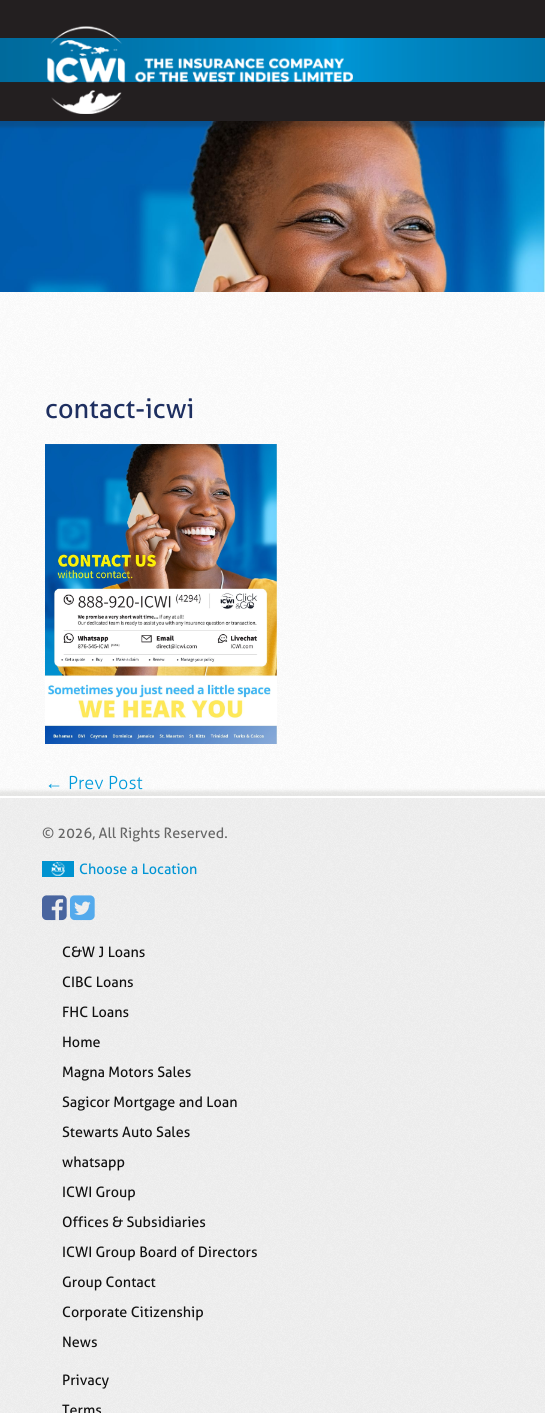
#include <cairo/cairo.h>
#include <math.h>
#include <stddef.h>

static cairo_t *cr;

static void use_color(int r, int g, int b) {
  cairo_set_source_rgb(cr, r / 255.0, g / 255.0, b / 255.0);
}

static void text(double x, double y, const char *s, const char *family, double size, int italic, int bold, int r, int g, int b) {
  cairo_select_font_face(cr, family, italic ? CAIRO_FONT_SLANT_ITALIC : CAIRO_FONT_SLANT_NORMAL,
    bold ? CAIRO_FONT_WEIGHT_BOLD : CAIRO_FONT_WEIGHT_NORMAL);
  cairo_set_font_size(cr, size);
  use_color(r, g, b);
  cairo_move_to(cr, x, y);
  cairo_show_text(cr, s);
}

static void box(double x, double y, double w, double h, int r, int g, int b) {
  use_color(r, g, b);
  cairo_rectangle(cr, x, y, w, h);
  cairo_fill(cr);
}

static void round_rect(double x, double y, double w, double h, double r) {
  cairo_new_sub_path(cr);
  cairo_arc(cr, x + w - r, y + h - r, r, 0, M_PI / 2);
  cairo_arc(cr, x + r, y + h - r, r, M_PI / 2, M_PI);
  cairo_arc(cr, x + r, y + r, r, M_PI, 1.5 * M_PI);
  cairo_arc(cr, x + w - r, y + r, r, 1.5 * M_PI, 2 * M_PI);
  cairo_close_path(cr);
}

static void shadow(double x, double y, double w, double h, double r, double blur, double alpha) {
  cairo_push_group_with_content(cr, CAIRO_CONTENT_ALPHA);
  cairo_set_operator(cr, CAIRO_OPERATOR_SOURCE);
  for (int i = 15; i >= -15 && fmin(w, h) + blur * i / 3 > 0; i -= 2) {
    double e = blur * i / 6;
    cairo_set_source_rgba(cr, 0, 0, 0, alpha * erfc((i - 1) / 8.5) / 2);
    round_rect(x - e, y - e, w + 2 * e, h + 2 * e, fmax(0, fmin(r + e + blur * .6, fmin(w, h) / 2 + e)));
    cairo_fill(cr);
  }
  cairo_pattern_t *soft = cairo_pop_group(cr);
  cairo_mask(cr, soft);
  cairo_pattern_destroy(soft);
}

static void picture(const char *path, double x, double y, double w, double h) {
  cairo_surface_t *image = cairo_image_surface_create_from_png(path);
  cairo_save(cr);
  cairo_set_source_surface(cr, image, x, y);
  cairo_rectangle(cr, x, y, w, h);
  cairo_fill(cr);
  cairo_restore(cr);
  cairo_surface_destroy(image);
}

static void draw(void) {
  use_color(255, 255, 255);
  cairo_paint(cr);
  picture("img_01.png", 0, 292, 545, 504);
  picture("img_04.png", 0, 121, 545, 171);
  use_color(35, 31, 32);
  shadow(-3, 0, 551, 127, 0, 1.5, 0.2);
  box(0, 0, 545, 121, 35, 31, 32);
  picture("img_02.png", 0, 38, 545, 45);
  picture("img_03.png", 47, 26, 306, 88);
  picture("img_05.png", 45, 444, 232, 300);
  use_color(31, 34, 21);
  shadow(-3, 791, 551, 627, 0, 1.5, 0.1);
  box(0, 798, 545, 615, 241, 241, 241);
  picture("img_06.png", 0, 798, 545, 615);
  box(0, 796, 545, 2, 255, 255, 255);
  picture("img_07.png", 42, 861, 32, 16);
  picture("img_08.png", 42, 895, 25, 26);
  picture("img_09.png", 70, 895, 25, 26);
  text(45, 418, "contact-icwi", "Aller", 27, 0, 0, 30, 47, 96);
  text(45, 789, "←", "Liberation Serif", 18, 0, 0, 0, 154, 218);
  text(68, 789, "Prev Post", "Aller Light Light", 18, 0, 0, 0, 154, 218);
  text(42, 838, "© 2026, All Rights Reserved.", "Aller", 14.4, 0, 0, 102, 102, 102);
  text(79, 874, "Choose a Location", "Aller", 14.4, 0, 0, 0, 148, 212);
  text(62, 957, "C&W J Loans", "Aller", 14.4, 0, 0, 17, 17, 17);
  text(62, 987, "CIBC Loans", "Aller", 14.4, 0, 0, 17, 17, 17);
  text(62, 1017, "FHC Loans", "Aller", 14.4, 0, 0, 17, 17, 17);
  text(62, 1047, "Home", "Aller", 14.4, 0, 0, 17, 17, 17);
  text(62, 1077, "Magna Motors Sales", "Aller", 14.4, 0, 0, 17, 17, 17);
  text(62, 1107, "Sagicor Mortgage and Loan", "Aller", 14.4, 0, 0, 17, 17, 17);
  text(62, 1137, "Stewarts Auto Sales", "Aller", 14.4, 0, 0, 17, 17, 17);
  text(62, 1167, "whatsapp", "Aller", 14.4, 0, 0, 17, 17, 17);
  text(62, 1197, "ICWI Group", "Aller", 14.4, 0, 0, 17, 17, 17);
  text(62, 1227, "Offices & Subsidiaries", "Aller", 14.4, 0, 0, 17, 17, 17);
  text(62, 1257, "ICWI Group Board of Directors", "Aller", 14.4, 0, 0, 17, 17, 17);
  text(62, 1287, "Group Contact", "Aller", 14.4, 0, 0, 17, 17, 17);
  text(62, 1317, "Corporate Citizenship", "Aller", 14.4, 0, 0, 17, 17, 17);
  text(62, 1347, "News", "Aller", 14.4, 0, 0, 17, 17, 17);
  text(62, 1385, "Privacy", "Aller", 14.4, 0, 0, 17, 17, 17);
  text(62, 1415, "Terms", "Aller", 14.4, 0, 0, 17, 17, 17);
}

int main(void) {
  cairo_surface_t *surface = cairo_image_surface_create(CAIRO_FORMAT_RGB24, 545, 1413);
  cr = cairo_create(surface);
  cairo_font_options_t *options = cairo_font_options_create();
  cairo_font_options_set_hint_metrics(options, CAIRO_HINT_METRICS_OFF);
  cairo_font_options_set_hint_style(options, CAIRO_HINT_STYLE_NONE);
  cairo_set_font_options(cr, options);
  cairo_set_miter_limit(cr, 4);
  draw();
  cairo_surface_write_to_png(surface, "out.png");
  cairo_font_options_destroy(options);
  cairo_destroy(cr);
  cairo_surface_destroy(surface);
  return 0;
}
